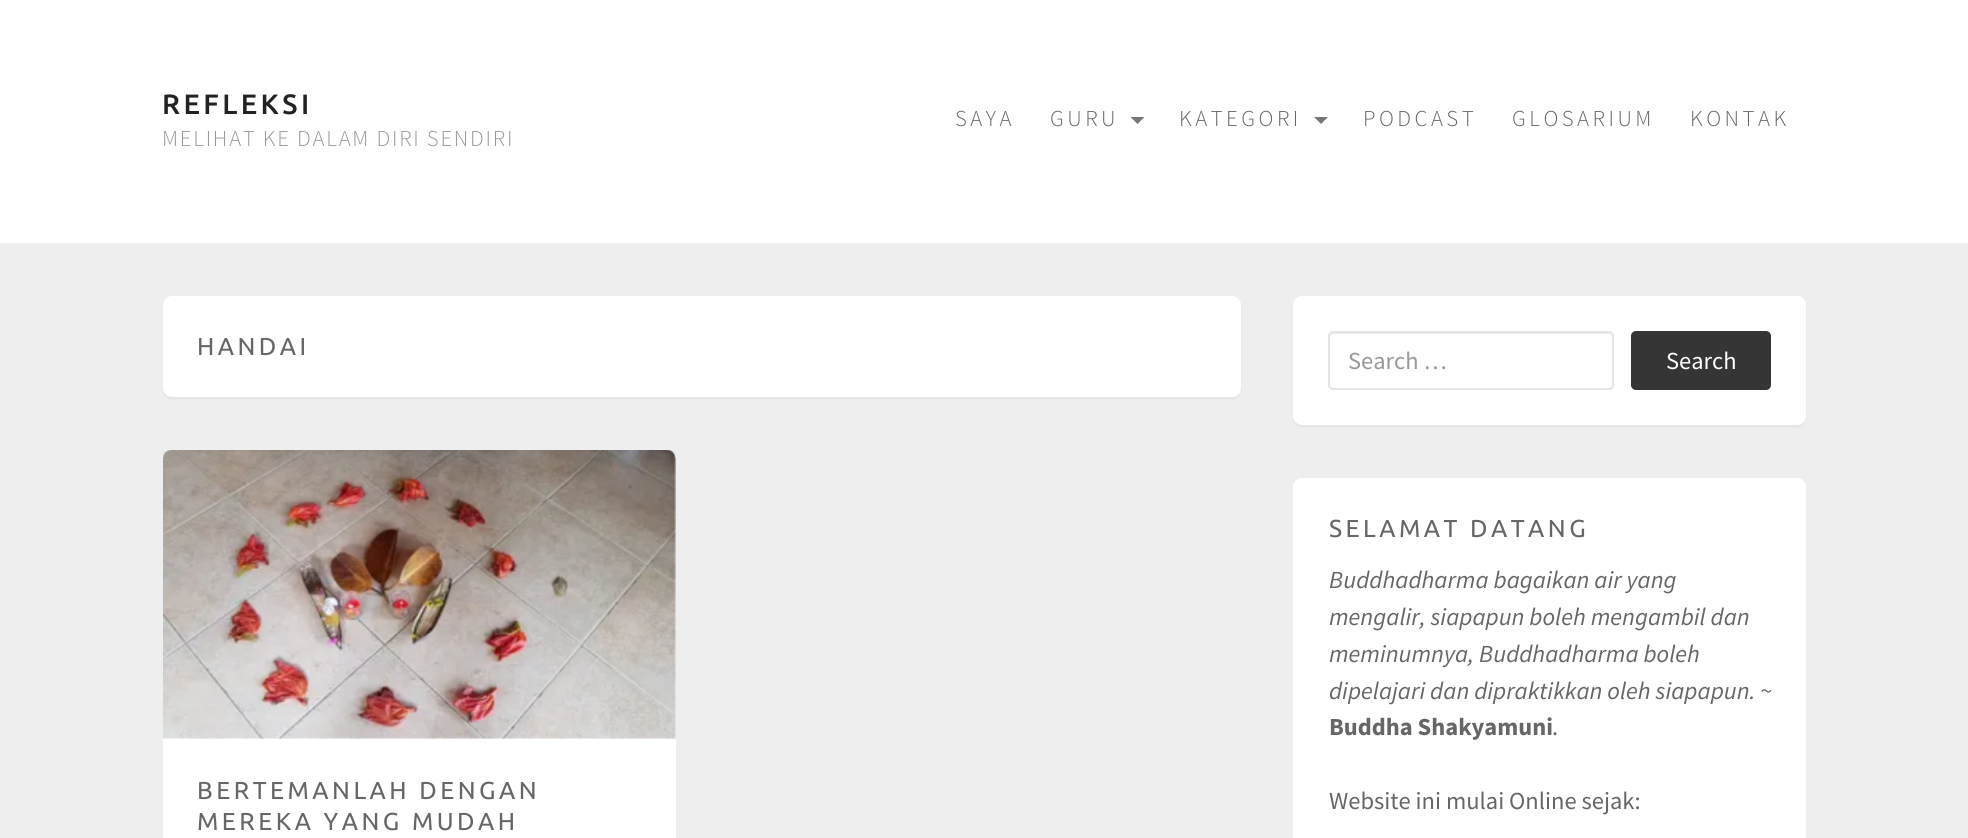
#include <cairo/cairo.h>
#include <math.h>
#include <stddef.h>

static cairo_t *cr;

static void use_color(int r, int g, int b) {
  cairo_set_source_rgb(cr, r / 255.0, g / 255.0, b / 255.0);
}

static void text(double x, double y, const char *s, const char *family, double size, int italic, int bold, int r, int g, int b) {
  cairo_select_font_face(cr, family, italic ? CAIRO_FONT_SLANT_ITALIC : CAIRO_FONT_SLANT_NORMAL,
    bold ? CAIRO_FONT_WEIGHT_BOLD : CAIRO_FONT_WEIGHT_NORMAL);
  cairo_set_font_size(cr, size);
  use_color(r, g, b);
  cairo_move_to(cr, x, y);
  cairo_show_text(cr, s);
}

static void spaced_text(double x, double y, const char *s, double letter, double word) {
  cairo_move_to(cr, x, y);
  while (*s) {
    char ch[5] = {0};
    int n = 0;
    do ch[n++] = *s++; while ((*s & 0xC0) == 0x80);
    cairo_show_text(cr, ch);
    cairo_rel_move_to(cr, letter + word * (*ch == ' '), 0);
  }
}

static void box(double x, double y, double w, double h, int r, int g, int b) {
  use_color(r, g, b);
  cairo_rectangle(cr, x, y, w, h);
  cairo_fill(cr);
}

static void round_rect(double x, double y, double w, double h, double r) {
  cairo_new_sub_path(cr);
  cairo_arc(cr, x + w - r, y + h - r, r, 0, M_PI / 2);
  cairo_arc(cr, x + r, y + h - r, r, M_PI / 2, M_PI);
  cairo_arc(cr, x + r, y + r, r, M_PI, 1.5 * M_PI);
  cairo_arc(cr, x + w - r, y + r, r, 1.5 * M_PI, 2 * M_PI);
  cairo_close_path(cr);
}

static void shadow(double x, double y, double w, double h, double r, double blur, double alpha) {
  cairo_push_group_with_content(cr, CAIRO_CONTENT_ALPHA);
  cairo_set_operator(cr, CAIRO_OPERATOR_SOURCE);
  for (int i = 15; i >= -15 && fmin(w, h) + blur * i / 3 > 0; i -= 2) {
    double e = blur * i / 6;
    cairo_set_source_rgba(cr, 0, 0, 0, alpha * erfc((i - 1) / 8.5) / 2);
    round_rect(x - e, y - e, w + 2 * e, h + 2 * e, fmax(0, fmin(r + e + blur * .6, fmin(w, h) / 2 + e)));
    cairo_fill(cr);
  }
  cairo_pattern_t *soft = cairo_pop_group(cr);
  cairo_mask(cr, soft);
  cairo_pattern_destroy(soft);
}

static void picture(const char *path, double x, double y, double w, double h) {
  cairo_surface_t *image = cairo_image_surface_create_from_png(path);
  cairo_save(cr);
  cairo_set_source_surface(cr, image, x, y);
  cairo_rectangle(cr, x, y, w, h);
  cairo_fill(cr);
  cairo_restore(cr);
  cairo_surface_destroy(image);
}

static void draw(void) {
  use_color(238, 238, 238);
  cairo_paint(cr);
  box(0, 0, 1968, 243, 255, 255, 255);
  use_color(119, 119, 119);
  cairo_new_path(cr);
  cairo_move_to(cr, 1130.5, 117);
  cairo_line_to(cr, 1144.5, 117);
  cairo_line_to(cr, 1137.5, 124);
  cairo_close_path(cr);
  cairo_fill(cr);
  cairo_new_path(cr);
  cairo_move_to(cr, 1314, 117);
  cairo_line_to(cr, 1328, 117);
  cairo_line_to(cr, 1321, 124);
  cairo_close_path(cr);
  cairo_fill(cr);
  use_color(0, 0, 0);
  shadow(163, 298, 1078, 101, 9, 1, 0.05);
  use_color(255, 255, 255);
  round_rect(163, 296, 1078, 101, 9);
  cairo_fill(cr);
  round_rect(163, 450, 513, 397, 9);
  cairo_fill(cr);
  picture("img_01.png", 163, 450, 513, 289);
  use_color(0, 0, 0);
  shadow(1293, 298, 513, 129, 9, 1, 0.05);
  use_color(255, 255, 255);
  round_rect(1293, 296, 513, 129, 9);
  cairo_fill(cr);
  use_color(236, 236, 236);
  cairo_new_path(cr);
  cairo_move_to(cr, 1334, 334);
  cairo_line_to(cr, 1608, 334);
  cairo_curve_to(cr, 1610, 334, 1612, 336, 1612, 338);
  cairo_curve_to(cr, 1612, 335, 1611, 333, 1608, 333);
  cairo_line_to(cr, 1334, 333);
  cairo_curve_to(cr, 1331, 333, 1330, 335, 1330, 338);
  cairo_curve_to(cr, 1330, 336, 1332, 334, 1334, 334);
  cairo_close_path(cr);
  cairo_fill(cr);
  round_rect(1329, 332, 284, 57, 4);
  use_color(229, 229, 229);
  cairo_stroke(cr);
  use_color(53, 53, 53);
  round_rect(1631, 331, 140, 59, 5);
  cairo_fill(cr);
  use_color(255, 255, 255);
  round_rect(1293, 478, 513, 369, 9);
  cairo_fill(cr);
  cairo_select_font_face(cr, "Ubuntu Medium", CAIRO_FONT_SLANT_NORMAL, CAIRO_FONT_WEIGHT_NORMAL);
  cairo_set_font_size(cr, 28);
  use_color(34, 34, 34);
  spaced_text(162, 114, "REFLEKSI", 3.5, 0);
  cairo_select_font_face(cr, "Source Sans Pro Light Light", CAIRO_FONT_SLANT_NORMAL, CAIRO_FONT_WEIGHT_NORMAL);
  cairo_set_font_size(cr, 22.75);
  use_color(153, 153, 153);
  spaced_text(162, 146, "MELIHAT KE DALAM DIRI SENDIRI", 1.75, 0);
  use_color(102, 102, 102);
  spaced_text(955, 126, "SAYA", 3.5, 0);
  spaced_text(1050, 126, "GURU", 3.5, 0);
  spaced_text(1179, 126, "KATEGORI", 3.5, 0);
  spaced_text(1363, 126, "PODCAST", 3.5, 0);
  spaced_text(1512, 126, "GLOSARIUM", 3.5, 0);
  spaced_text(1690, 126, "KONTAK", 3.5, 0);
  cairo_select_font_face(cr, "Ubuntu", CAIRO_FONT_SLANT_NORMAL, CAIRO_FONT_WEIGHT_NORMAL);
  cairo_set_font_size(cr, 24.5);
  spaced_text(197, 355, "HANDAI", 3.5, 0);
  spaced_text(197, 799, "BERTEMANLAH DENGAN", 3.5, 0);
  spaced_text(197, 830, "MEREKA YANG MUDAH", 3.5, 0);
  text(1348, 369, "Search …", "Source Sans Pro", 24.5, 0, 0, 153, 153, 153);
  text(1666, 369, "Search", "Source Sans Pro", 24.5, 0, 0, 255, 255, 255);
  cairo_select_font_face(cr, "Ubuntu", CAIRO_FONT_SLANT_NORMAL, CAIRO_FONT_WEIGHT_NORMAL);
  use_color(102, 102, 102);
  spaced_text(1329, 537, "SELAMAT DATANG", 3.5, 0);
  text(1329, 588, "Buddhadharma bagaikan air yang", "Source Sans Pro", 24.5, 1, 0, 102, 102, 102);
  text(1329, 625, "mengalir, siapapun boleh mengambil dan", "Source Sans Pro", 24.5, 1, 0, 102, 102, 102);
  text(1329, 662, "meminumnya, Buddhadharma boleh", "Source Sans Pro", 24.5, 1, 0, 102, 102, 102);
  text(1329, 699, "dipelajari dan dipraktikkan oleh siapapun. ~", "Source Sans Pro", 24.5, 1, 0, 102, 102, 102);
  text(1329, 735, "Buddha Shakyamuni", "Source Sans Pro", 24.5, 0, 1, 102, 102, 102);
  text(1552, 735, ".", "Source Sans Pro", 24.5, 0, 0, 102, 102, 102);
  text(1329, 809, "Website ini mulai Online sejak:", "Source Sans Pro", 24.5, 0, 0, 102, 102, 102);
}

int main(void) {
  cairo_surface_t *surface = cairo_image_surface_create(CAIRO_FORMAT_RGB24, 1968, 838);
  cr = cairo_create(surface);
  cairo_font_options_t *options = cairo_font_options_create();
  cairo_font_options_set_hint_metrics(options, CAIRO_HINT_METRICS_OFF);
  cairo_font_options_set_hint_style(options, CAIRO_HINT_STYLE_NONE);
  cairo_set_font_options(cr, options);
  cairo_set_miter_limit(cr, 4);
  draw();
  cairo_surface_write_to_png(surface, "out.png");
  cairo_font_options_destroy(options);
  cairo_destroy(cr);
  cairo_surface_destroy(surface);
  return 0;
}
